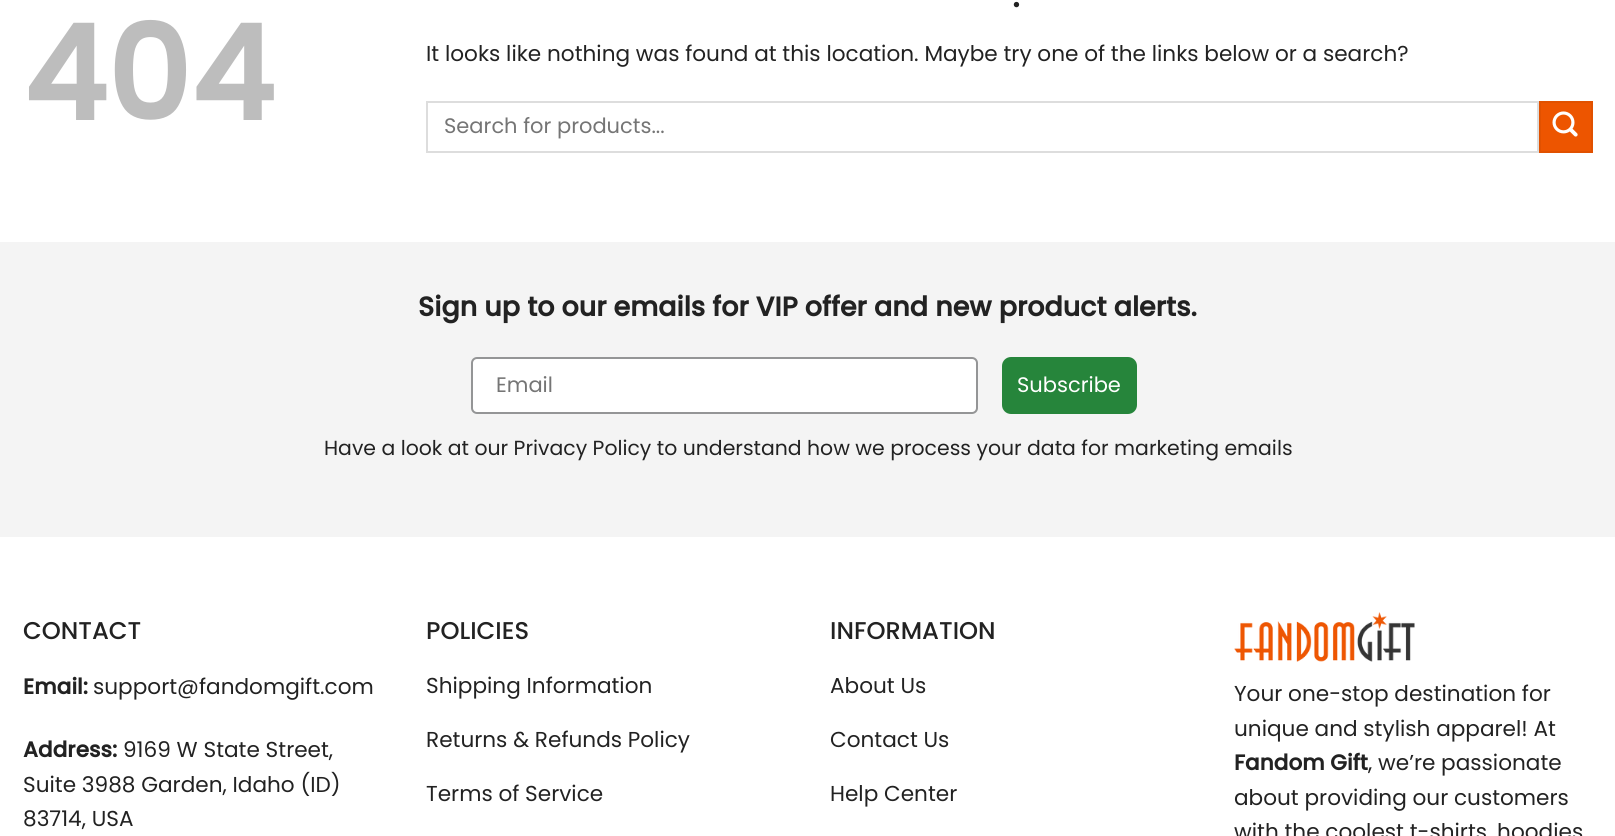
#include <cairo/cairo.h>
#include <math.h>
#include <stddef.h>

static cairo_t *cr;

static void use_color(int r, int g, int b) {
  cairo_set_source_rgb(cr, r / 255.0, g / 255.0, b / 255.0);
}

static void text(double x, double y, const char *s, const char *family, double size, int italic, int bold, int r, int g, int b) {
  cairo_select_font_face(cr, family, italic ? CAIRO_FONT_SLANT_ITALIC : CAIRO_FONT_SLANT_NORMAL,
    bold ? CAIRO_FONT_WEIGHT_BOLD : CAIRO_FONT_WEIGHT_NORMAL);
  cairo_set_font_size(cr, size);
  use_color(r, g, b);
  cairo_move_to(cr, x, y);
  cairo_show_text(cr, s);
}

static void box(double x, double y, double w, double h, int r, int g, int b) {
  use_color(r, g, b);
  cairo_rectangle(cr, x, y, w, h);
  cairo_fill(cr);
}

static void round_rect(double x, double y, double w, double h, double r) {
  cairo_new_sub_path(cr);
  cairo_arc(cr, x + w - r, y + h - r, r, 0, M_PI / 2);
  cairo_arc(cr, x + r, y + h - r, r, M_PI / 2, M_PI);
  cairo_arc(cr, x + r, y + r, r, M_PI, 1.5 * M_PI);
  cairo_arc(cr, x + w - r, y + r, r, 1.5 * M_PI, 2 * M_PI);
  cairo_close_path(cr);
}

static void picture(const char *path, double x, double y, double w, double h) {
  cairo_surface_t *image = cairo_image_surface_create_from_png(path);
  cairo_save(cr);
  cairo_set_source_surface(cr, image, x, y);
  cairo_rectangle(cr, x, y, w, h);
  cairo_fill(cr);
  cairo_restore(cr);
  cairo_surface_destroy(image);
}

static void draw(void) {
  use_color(255, 255, 255);
  cairo_paint(cr);
  cairo_rectangle(cr, 427, 102, 1111, 50);
  use_color(221, 221, 221);
  cairo_stroke(cr);
  use_color(237, 85, 0);
  cairo_rectangle(cr, 1540, 102, 52, 50);
  cairo_fill_preserve(cr);
  use_color(225, 81, 0);
  cairo_stroke(cr);
  picture("img_01.png", 1552, 111, 26, 26);
  box(0, 242, 1615, 295, 244, 244, 244);
  use_color(255, 255, 255);
  round_rect(472, 358, 505, 55, 5);
  cairo_fill_preserve(cr);
  use_color(148, 149, 150);
  cairo_stroke(cr);
  use_color(38, 133, 59);
  round_rect(1002, 357, 135, 57, 9);
  cairo_fill(cr);
  picture("img_02.png", 1234, 612, 181, 50);
  text(23, 120, "404", "Poppins", 130, 0, 1, 189, 189, 189);
  text(1012, 7, ".", "Poppins Medium", 37, 0, 0, 34, 34, 34);
  text(426, 61, "It looks like nothing was found at this location. Maybe try one of the links below or a search?", "Poppins", 21.6, 0, 0, 34, 34, 34);
  text(444, 133, "Search for products...", "Poppins", 21, 0, 0, 117, 117, 117);
  text(418, 316, "Sign up to our emails for VIP offer and new product alerts.", "Poppins", 27, 0, 1, 34, 34, 34);
  text(496, 392, "Email", "Poppins", 21, 0, 0, 117, 117, 117);
  text(1017, 392, "Subscribe", "Poppins", 21, 0, 0, 255, 255, 255);
  text(324, 455, "Have a look at our Privacy Policy to understand how we process your data for marketing emails", "Poppins", 20.4, 0, 0, 34, 34, 34);
  text(23, 639, "CONTACT", "Poppins Medium", 24.25, 0, 0, 34, 34, 34);
  text(23, 694, "Email:", "Poppins", 21.6, 0, 1, 34, 34, 34);
  text(93, 694, "support@fandomgift.com", "Poppins", 21.6, 0, 0, 34, 34, 34);
  text(23, 757, "Address:", "Poppins", 21.6, 0, 1, 34, 34, 34);
  text(123, 757, "9169 W State Street,", "Poppins", 21.6, 0, 0, 34, 34, 34);
  text(23, 792, "Suite 3988 Garden, Idaho (ID)", "Poppins", 21.6, 0, 0, 34, 34, 34);
  text(23, 826, "83714, USA", "Poppins", 21.6, 0, 0, 34, 34, 34);
  text(426, 639, "POLICIES", "Poppins Medium", 24.25, 0, 0, 34, 34, 34);
  text(426, 693, "Shipping Information", "Poppins", 21.6, 0, 0, 34, 34, 34);
  text(426, 747, "Returns & Refunds Policy", "Poppins", 21.6, 0, 0, 34, 34, 34);
  text(426, 801, "Terms of Service", "Poppins", 21.6, 0, 0, 34, 34, 34);
  text(830, 639, "INFORMATION", "Poppins Medium", 24.25, 0, 0, 34, 34, 34);
  text(830, 693, "About Us", "Poppins", 21.6, 0, 0, 34, 34, 34);
  text(830, 747, "Contact Us", "Poppins", 21.6, 0, 0, 34, 34, 34);
  text(830, 801, "Help Center", "Poppins", 21.6, 0, 0, 34, 34, 34);
  text(1234, 701, "Your one-stop destination for", "Poppins", 21.6, 0, 0, 34, 34, 34);
  text(1234, 736, "unique and stylish apparel! At", "Poppins", 21.6, 0, 0, 34, 34, 34);
  text(1234, 770, "Fandom Gift", "Poppins", 21.6, 0, 1, 34, 34, 34);
  text(1368, 770, ", we’re passionate", "Poppins", 21.6, 0, 0, 34, 34, 34);
  text(1234, 805, "about providing our customers", "Poppins", 21.6, 0, 0, 34, 34, 34);
  text(1234, 839, "with the coolest t-shirts, hoodies", "Poppins", 21.6, 0, 0, 34, 34, 34);
}

int main(void) {
  cairo_surface_t *surface = cairo_image_surface_create(CAIRO_FORMAT_RGB24, 1615, 836);
  cr = cairo_create(surface);
  cairo_font_options_t *options = cairo_font_options_create();
  cairo_font_options_set_hint_metrics(options, CAIRO_HINT_METRICS_OFF);
  cairo_font_options_set_hint_style(options, CAIRO_HINT_STYLE_NONE);
  cairo_set_font_options(cr, options);
  cairo_set_miter_limit(cr, 4);
  draw();
  cairo_surface_write_to_png(surface, "out.png");
  cairo_font_options_destroy(options);
  cairo_destroy(cr);
  cairo_surface_destroy(surface);
  return 0;
}
